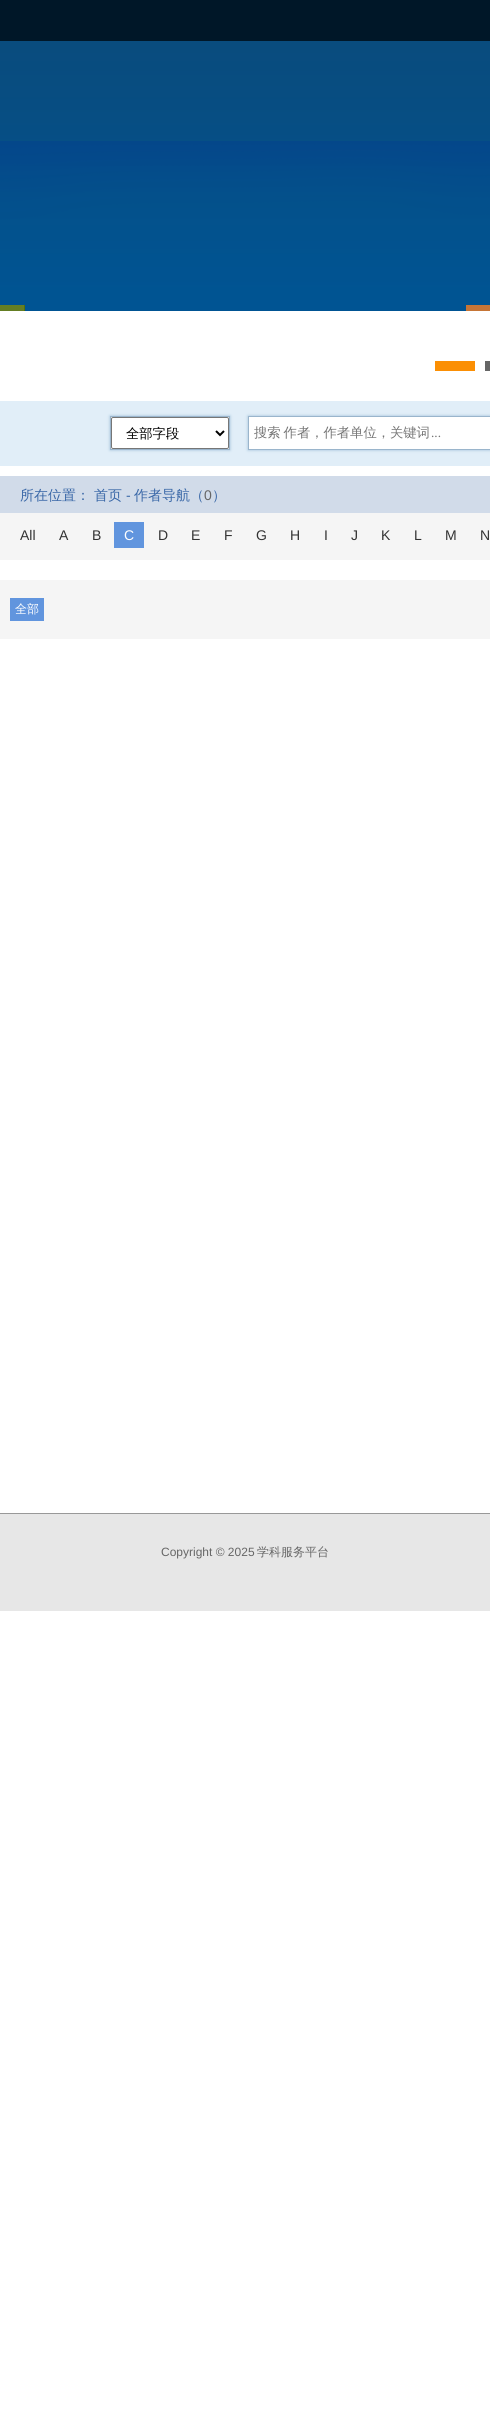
#include <cairo/cairo.h>
#include <math.h>
#include <stddef.h>

static cairo_t *cr;

static void use_color(int r, int g, int b) {
  cairo_set_source_rgb(cr, r / 255.0, g / 255.0, b / 255.0);
}

static void text(double x, double y, const char *s, const char *family, double size, int italic, int bold, int r, int g, int b) {
  cairo_select_font_face(cr, family, italic ? CAIRO_FONT_SLANT_ITALIC : CAIRO_FONT_SLANT_NORMAL,
    bold ? CAIRO_FONT_WEIGHT_BOLD : CAIRO_FONT_WEIGHT_NORMAL);
  cairo_set_font_size(cr, size);
  use_color(r, g, b);
  cairo_move_to(cr, x, y);
  cairo_show_text(cr, s);
}

static void spaced_text(double x, double y, const char *s, double letter, double word) {
  cairo_move_to(cr, x, y);
  while (*s) {
    char ch[5] = {0};
    int n = 0;
    do ch[n++] = *s++; while ((*s & 0xC0) == 0x80);
    cairo_show_text(cr, ch);
    cairo_rel_move_to(cr, letter + word * (*ch == ' '), 0);
  }
}

static void box(double x, double y, double w, double h, int r, int g, int b) {
  use_color(r, g, b);
  cairo_rectangle(cr, x, y, w, h);
  cairo_fill(cr);
}

static void round_rect(double x, double y, double w, double h, double r) {
  cairo_new_sub_path(cr);
  cairo_arc(cr, x + w - r, y + h - r, r, 0, M_PI / 2);
  cairo_arc(cr, x + r, y + h - r, r, M_PI / 2, M_PI);
  cairo_arc(cr, x + r, y + r, r, M_PI, 1.5 * M_PI);
  cairo_arc(cr, x + w - r, y + r, r, 1.5 * M_PI, 2 * M_PI);
  cairo_close_path(cr);
}

static void shadow(double x, double y, double w, double h, double r, double blur, double alpha) {
  cairo_push_group_with_content(cr, CAIRO_CONTENT_ALPHA);
  cairo_set_operator(cr, CAIRO_OPERATOR_SOURCE);
  for (int i = 15; i >= -15 && fmin(w, h) + blur * i / 3 > 0; i -= 2) {
    double e = blur * i / 6;
    cairo_set_source_rgba(cr, 0, 0, 0, alpha * erfc((i - 1) / 8.5) / 2);
    round_rect(x - e, y - e, w + 2 * e, h + 2 * e, fmax(0, fmin(r + e + blur * .6, fmin(w, h) / 2 + e)));
    cairo_fill(cr);
  }
  cairo_pattern_t *soft = cairo_pop_group(cr);
  cairo_mask(cr, soft);
  cairo_pattern_destroy(soft);
}

static void picture(const char *path, double x, double y, double w, double h) {
  cairo_surface_t *image = cairo_image_surface_create_from_png(path);
  cairo_save(cr);
  cairo_set_source_surface(cr, image, x, y);
  cairo_rectangle(cr, x, y, w, h);
  cairo_fill(cr);
  cairo_restore(cr);
  cairo_surface_destroy(image);
}

static void draw(void) {
  use_color(255, 255, 255);
  cairo_paint(cr);
  box(0, 0, 490, 41, 0, 23, 40);
  picture("img_01.png", 0, 41, 490, 270);
  box(435, 361, 40, 10, 251, 143, 4);
  box(485, 361, 5, 10, 102, 102, 102);
  box(0, 401, 490, 65, 225, 238, 248);
  use_color(159, 190, 215);
  shadow(110, 416, 120, 34, 0, 1.5, 1);
  use_color(255, 255, 255);
  cairo_rectangle(cr, 110.5, 416.5, 119, 33);
  cairo_fill_preserve(cr);
  use_color(154, 181, 204);
  cairo_set_line_width(cr, 1);
  cairo_stroke(cr);
  round_rect(111.5, 417.5, 117, 31, 1.5);
  use_color(118, 118, 118);
  cairo_stroke(cr);
  cairo_new_path(cr);
  cairo_move_to(cr, 216, 431);
  cairo_line_to(cr, 220, 435);
  cairo_line_to(cr, 224, 431);
  use_color(0, 0, 0);
  cairo_set_line_width(cr, 2);
  cairo_stroke(cr);
  use_color(159, 190, 215);
  shadow(248, 416, 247, 34, 0, 1.5, 1);
  box(249, 417, 241, 32, 255, 255, 255);
  box(248, 416, 242, 1, 154, 181, 204);
  box(248, 449, 242, 1, 154, 181, 204);
  box(248, 416, 1, 34, 154, 181, 204);
  box(0, 476, 490, 37, 209, 219, 233);
  box(0, 513, 490, 47, 245, 245, 245);
  box(114, 522, 30, 26, 97, 149, 222);
  box(0, 580, 490, 59, 245, 245, 245);
  box(10, 598, 34, 23, 97, 149, 222);
  box(0, 1514, 490, 97, 231, 231, 231);
  box(0, 1513, 490, 1, 153, 153, 153);
  text(126, 438, "全部字段", "WenQuanYi Zen Hei Medium", 13.3, 0, 0, 0, 0, 0);
  use_color(117, 117, 117);
  spaced_text(254, 437, "搜索 作者，作者单位，关键词", 0, -1);
  text(431, 437, "...", "Liberation Serif", 13.3, 0, 0, 117, 117, 117);
  text(20, 500, "所在位置：", "WenQuanYi Zen Hei Medium", 14, 0, 0, 57, 103, 167);
  text(94, 500, "首页", "WenQuanYi Zen Hei Medium", 14, 0, 0, 57, 103, 167);
  text(126, 500, "-", "Liberation Sans", 14, 0, 0, 57, 103, 167);
  text(134, 500, "作者导航（", "WenQuanYi Zen Hei Medium", 14, 0, 0, 57, 103, 167);
  text(204, 500, "0", "Liberation Sans", 14, 0, 0, 102, 102, 102);
  text(212, 500, "）", "WenQuanYi Zen Hei Medium", 14, 0, 0, 57, 103, 167);
  text(20, 540, "All", "Liberation Sans", 14, 0, 0, 51, 51, 51);
  text(59, 540, "A", "Liberation Sans", 14, 0, 0, 51, 51, 51);
  text(92, 540, "B", "Liberation Sans", 14, 0, 0, 51, 51, 51);
  text(124, 540, "C", "Liberation Sans", 14, 0, 0, 255, 255, 255);
  text(158, 540, "D", "Liberation Sans", 14, 0, 0, 51, 51, 51);
  text(191, 540, "E", "Liberation Sans", 14, 0, 0, 51, 51, 51);
  text(224, 540, "F", "Liberation Sans", 14, 0, 0, 51, 51, 51);
  text(256, 540, "G", "Liberation Sans", 14, 0, 0, 51, 51, 51);
  text(290, 540, "H", "Liberation Sans", 14, 0, 0, 51, 51, 51);
  text(324, 540, "I", "Liberation Sans", 14, 0, 0, 51, 51, 51);
  text(351, 540, "J", "Liberation Sans", 14, 0, 0, 51, 51, 51);
  text(381, 540, "K", "Liberation Sans", 14, 0, 0, 51, 51, 51);
  text(414, 540, "L", "Liberation Sans", 14, 0, 0, 51, 51, 51);
  text(445, 540, "M", "Liberation Sans", 14, 0, 0, 51, 51, 51);
  text(480, 540, "N", "Liberation Sans", 14, 0, 0, 51, 51, 51);
  text(15, 613, "全部", "WenQuanYi Zen Hei Medium", 12, 0, 0, 255, 255, 255);
  text(161, 1556, "Copyright © 2025", "Liberation Sans", 12, 0, 0, 102, 102, 102);
  text(257, 1556, "学科服务平台", "WenQuanYi Zen Hei Medium", 12, 0, 0, 102, 102, 102);
}

int main(void) {
  cairo_surface_t *surface = cairo_image_surface_create(CAIRO_FORMAT_RGB24, 490, 2427);
  cr = cairo_create(surface);
  cairo_font_options_t *options = cairo_font_options_create();
  cairo_font_options_set_hint_metrics(options, CAIRO_HINT_METRICS_OFF);
  cairo_font_options_set_hint_style(options, CAIRO_HINT_STYLE_NONE);
  cairo_set_font_options(cr, options);
  cairo_set_miter_limit(cr, 4);
  draw();
  cairo_surface_write_to_png(surface, "out.png");
  cairo_font_options_destroy(options);
  cairo_destroy(cr);
  cairo_surface_destroy(surface);
  return 0;
}
